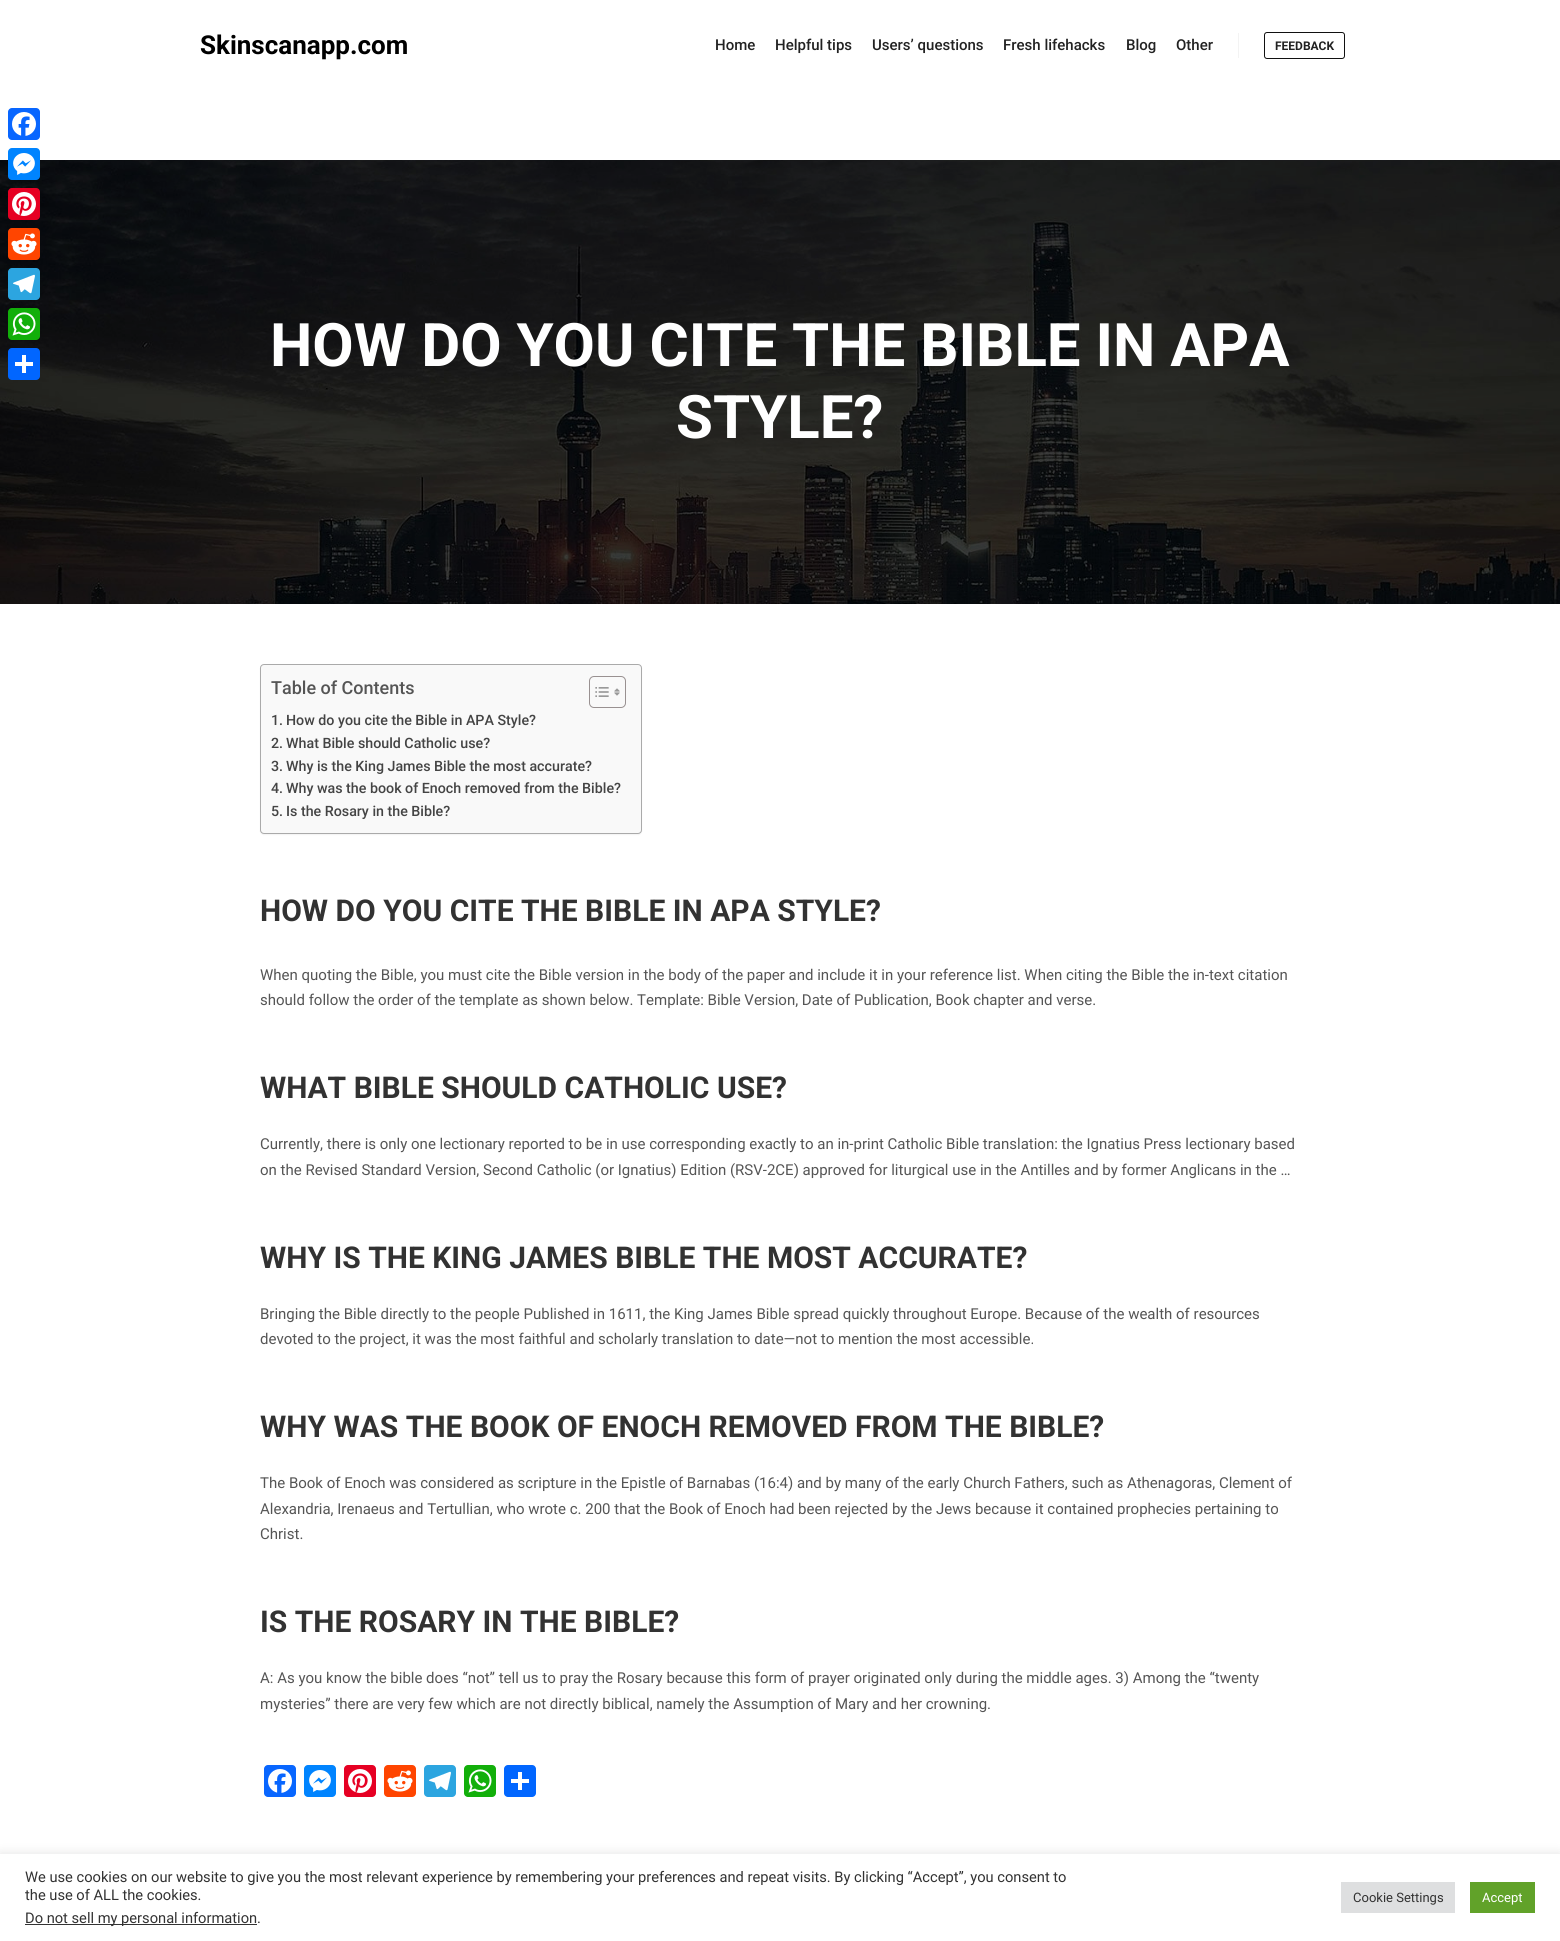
#include <cairo/cairo.h>
#include <math.h>
#include <stddef.h>

static cairo_t *cr;

static void use_color(int r, int g, int b) {
  cairo_set_source_rgb(cr, r / 255.0, g / 255.0, b / 255.0);
}

static void text(double x, double y, const char *s, const char *family, double size, int italic, int bold, int r, int g, int b) {
  cairo_select_font_face(cr, family, italic ? CAIRO_FONT_SLANT_ITALIC : CAIRO_FONT_SLANT_NORMAL,
    bold ? CAIRO_FONT_WEIGHT_BOLD : CAIRO_FONT_WEIGHT_NORMAL);
  cairo_set_font_size(cr, size);
  use_color(r, g, b);
  cairo_move_to(cr, x, y);
  cairo_show_text(cr, s);
}

static void box(double x, double y, double w, double h, int r, int g, int b) {
  use_color(r, g, b);
  cairo_rectangle(cr, x, y, w, h);
  cairo_fill(cr);
}

static void round_rect(double x, double y, double w, double h, double r) {
  cairo_new_sub_path(cr);
  cairo_arc(cr, x + w - r, y + h - r, r, 0, M_PI / 2);
  cairo_arc(cr, x + r, y + h - r, r, M_PI / 2, M_PI);
  cairo_arc(cr, x + r, y + r, r, M_PI, 1.5 * M_PI);
  cairo_arc(cr, x + w - r, y + r, r, 1.5 * M_PI, 2 * M_PI);
  cairo_close_path(cr);
}

static void shadow(double x, double y, double w, double h, double r, double blur, double alpha) {
  cairo_push_group_with_content(cr, CAIRO_CONTENT_ALPHA);
  cairo_set_operator(cr, CAIRO_OPERATOR_SOURCE);
  for (int i = 15; i >= -15 && fmin(w, h) + blur * i / 3 > 0; i -= 2) {
    double e = blur * i / 6;
    cairo_set_source_rgba(cr, 0, 0, 0, alpha * erfc((i - 1) / 8.5) / 2);
    round_rect(x - e, y - e, w + 2 * e, h + 2 * e, fmax(0, fmin(r + e + blur * .6, fmin(w, h) / 2 + e)));
    cairo_fill(cr);
  }
  cairo_pattern_t *soft = cairo_pop_group(cr);
  cairo_mask(cr, soft);
  cairo_pattern_destroy(soft);
}

static void picture(const char *path, double x, double y, double w, double h) {
  cairo_surface_t *image = cairo_image_surface_create_from_png(path);
  cairo_save(cr);
  cairo_set_source_surface(cr, image, x, y);
  cairo_rectangle(cr, x, y, w, h);
  cairo_fill(cr);
  cairo_restore(cr);
  cairo_surface_destroy(image);
}

static void draw(void) {
  use_color(255, 255, 255);
  cairo_paint(cr);
  use_color(8, 102, 255);
  round_rect(8, 108, 32, 32, 4);
  cairo_fill(cr);
  picture("img_01.png", 12, 112, 24, 24);
  picture("img_07.png", 0, 160, 1560, 444);
  use_color(0, 132, 255);
  round_rect(8, 148, 32, 32, 4);
  cairo_fill(cr);
  picture("img_02.png", 13, 153, 22, 22);
  use_color(230, 0, 35);
  round_rect(8, 188, 32, 32, 4);
  cairo_fill(cr);
  picture("img_03.png", 12, 192, 24, 24);
  use_color(255, 69, 0);
  round_rect(8, 228, 32, 32, 4);
  cairo_fill(cr);
  picture("img_04.png", 11, 233, 26, 22);
  use_color(44, 165, 224);
  round_rect(8, 268, 32, 32, 4);
  cairo_fill(cr);
  picture("img_05.png", 13, 274, 22, 20);
  use_color(18, 175, 10);
  round_rect(8, 308, 32, 32, 4);
  cairo_fill(cr);
  picture("img_06.png", 12, 312, 24, 24);
  use_color(1, 102, 255);
  round_rect(8, 348, 32, 32, 4);
  cairo_fill(cr);
  box(22, 355, 4, 18, 255, 255, 255);
  box(15, 362, 18, 4, 255, 255, 255);
  box(1238, 33, 1, 25, 243, 243, 243);
  round_rect(1264.5, 32.5, 80, 26, 2.5);
  use_color(17, 17, 17);
  cairo_set_line_width(cr, 1);
  cairo_stroke(cr);
  use_color(0, 0, 0);
  shadow(260, 665, 382, 170, 4, 0.5, 0.05);
  use_color(249, 249, 249);
  round_rect(260.5, 664.5, 381, 169, 3.5);
  cairo_fill_preserve(cr);
  use_color(170, 170, 170);
  cairo_stroke(cr);
  round_rect(589.5, 676.5, 36, 31, 4.5);
  use_color(153, 145, 145);
  cairo_stroke(cr);
  picture("img_08.png", 595, 687, 14, 10);
  picture("img_09.png", 614, 688, 6, 8);
  use_color(8, 102, 255);
  round_rect(264, 1765, 32, 32, 4);
  cairo_fill(cr);
  picture("img_01.png", 268, 1769, 24, 24);
  use_color(0, 132, 255);
  round_rect(304, 1765, 32, 32, 4);
  cairo_fill(cr);
  picture("img_02.png", 309, 1770, 22, 22);
  use_color(230, 0, 35);
  round_rect(344, 1765, 32, 32, 4);
  cairo_fill(cr);
  picture("img_03.png", 348, 1769, 24, 24);
  use_color(255, 69, 0);
  round_rect(384, 1765, 32, 32, 4);
  cairo_fill(cr);
  picture("img_04.png", 387, 1770, 26, 22);
  use_color(44, 165, 224);
  round_rect(424, 1765, 32, 32, 4);
  cairo_fill(cr);
  picture("img_05.png", 429, 1771, 22, 20);
  use_color(18, 175, 10);
  round_rect(464, 1765, 32, 32, 4);
  cairo_fill(cr);
  picture("img_06.png", 468, 1769, 24, 24);
  use_color(1, 102, 255);
  round_rect(504, 1765, 32, 32, 4);
  cairo_fill(cr);
  box(518, 1772, 4, 18, 255, 255, 255);
  box(511, 1779, 18, 4, 255, 255, 255);
  use_color(172, 171, 171);
  shadow(0, 1853, 1560, 87, 0, 5, 0.3);
  box(0, 1854, 1560, 87, 255, 255, 255);
  box(25, 1924, 232, 1, 51, 51, 51);
  box(1341, 1882, 114, 31, 222, 223, 224);
  box(1470, 1882, 65, 31, 97, 162, 41);
  text(200, 54, "Skinscanapp.com", "Roboto", 26, 0, 1, 0, 0, 0);
  text(715, 50, "Home", "Roboto Medium", 15, 0, 0, 34, 34, 34);
  text(775, 50, "Helpful tips", "Roboto Medium", 15, 0, 0, 34, 34, 34);
  text(872, 50, "Users’ questions", "Roboto Medium", 15, 0, 0, 34, 34, 34);
  text(1003, 50, "Fresh lifehacks", "Roboto Medium", 15, 0, 0, 34, 34, 34);
  text(1126, 50, "Blog", "Roboto Medium", 15, 0, 0, 34, 34, 34);
  text(1176, 50, "Other", "Roboto Medium", 15, 0, 0, 34, 34, 34);
  text(1275, 50, "FEEDBACK", "Roboto", 12, 0, 1, 34, 34, 34);
  text(270, 366, "HOW DO YOU CITE THE BIBLE IN APA", "Roboto", 60, 0, 1, 255, 255, 255);
  text(676, 438, "STYLE?", "Roboto", 60, 0, 1, 255, 255, 255);
  text(271, 694, "Table of Contents", "Roboto Medium", 18, 0, 0, 85, 85, 85);
  text(271, 725, "1.", "Roboto Medium", 14.25, 0, 0, 68, 68, 68);
  text(286, 725, "How do you cite the Bible in APA Style?", "Roboto Medium", 14.25, 0, 0, 68, 68, 68);
  text(271, 748, "2.", "Roboto Medium", 14.25, 0, 0, 68, 68, 68);
  text(286, 748, "What Bible should Catholic use?", "Roboto Medium", 14.25, 0, 0, 68, 68, 68);
  text(271, 771, "3.", "Roboto Medium", 14.25, 0, 0, 68, 68, 68);
  text(286, 771, "Why is the King James Bible the most accurate?", "Roboto Medium", 14.25, 0, 0, 68, 68, 68);
  text(271, 793, "4.", "Roboto Medium", 14.25, 0, 0, 68, 68, 68);
  text(286, 793, "Why was the book of Enoch removed from the Bible?", "Roboto Medium", 14.25, 0, 0, 68, 68, 68);
  text(271, 816, "5.", "Roboto Medium", 14.25, 0, 0, 68, 68, 68);
  text(286, 816, "Is the Rosary in the Bible?", "Roboto Medium", 14.25, 0, 0, 68, 68, 68);
  text(260, 921, "HOW DO YOU CITE THE BIBLE IN APA STYLE?", "Roboto", 30, 0, 1, 50, 50, 50);
  text(260, 980, "When quoting the Bible, you must cite the Bible version in the body of the paper and include it in your reference list. When citing the Bible the in-text citation", "Roboto", 15, 0, 0, 85, 85, 85);
  text(260, 1005, "should follow the order of the template as shown below. Template: Bible Version, Date of Publication, Book chapter and verse.", "Roboto", 15, 0, 0, 85, 85, 85);
  text(260, 1098, "WHAT BIBLE SHOULD CATHOLIC USE?", "Roboto", 30, 0, 1, 50, 50, 50);
  text(260, 1149, "Currently, there is only one lectionary reported to be in use corresponding exactly to an in-print Catholic Bible translation: the Ignatius Press lectionary based", "Roboto", 15, 0, 0, 85, 85, 85);
  text(260, 1175, "on the Revised Standard Version, Second Catholic (or Ignatius) Edition (RSV-2CE) approved for liturgical use in the Antilles and by former Anglicans in the …", "Roboto", 15, 0, 0, 85, 85, 85);
  text(260, 1268, "WHY IS THE KING JAMES BIBLE THE MOST ACCURATE?", "Roboto", 30, 0, 1, 50, 50, 50);
  text(260, 1319, "Bringing the Bible directly to the people Published in 1611, the King James Bible spread quickly throughout Europe. Because of the wealth of resources", "Roboto", 15, 0, 0, 85, 85, 85);
  text(260, 1344, "devoted to the project, it was the most faithful and scholarly translation to date—not to mention the most accessible.", "Roboto", 15, 0, 0, 85, 85, 85);
  text(260, 1437, "WHY WAS THE BOOK OF ENOCH REMOVED FROM THE BIBLE?", "Roboto", 30, 0, 1, 50, 50, 50);
  text(260, 1488, "The Book of Enoch was considered as scripture in the Epistle of Barnabas (16:4) and by many of the early Church Fathers, such as Athenagoras, Clement of", "Roboto", 15, 0, 0, 85, 85, 85);
  text(260, 1514, "Alexandria, Irenaeus and Tertullian, who wrote c. 200 that the Book of Enoch had been rejected by the Jews because it contained prophecies pertaining to", "Roboto", 15, 0, 0, 85, 85, 85);
  text(260, 1539, "Christ.", "Roboto", 15, 0, 0, 85, 85, 85);
  text(260, 1632, "IS THE ROSARY IN THE BIBLE?", "Roboto", 30, 0, 1, 50, 50, 50);
  text(260, 1683, "A: As you know the bible does “not” tell us to pray the Rosary because this form of prayer originated only during the middle ages. 3) Among the “twenty", "Roboto", 15, 0, 0, 85, 85, 85);
  text(260, 1709, "mysteries” there are very few which are not directly biblical, namely the Assumption of Mary and her crowning.", "Roboto", 15, 0, 0, 85, 85, 85);
  text(25, 1882, "We use cookies on our website to give you the most relevant experience by remembering your preferences and repeat visits. By clicking “Accept”, you consent to", "Roboto", 14.67, 0, 0, 50, 50, 50);
  text(25, 1900, "the use of ALL the cookies.", "Roboto", 14.67, 0, 0, 50, 50, 50);
  text(25, 1923, "Do not sell my personal information.", "Roboto", 14.67, 0, 0, 50, 50, 50);
  text(1353, 1902, "Cookie Settings", "Roboto", 13, 0, 0, 50, 50, 50);
  text(1482, 1902, "Accept", "Roboto", 13, 0, 0, 255, 255, 255);
}

int main(void) {
  cairo_surface_t *surface = cairo_image_surface_create(CAIRO_FORMAT_RGB24, 1560, 1941);
  cr = cairo_create(surface);
  cairo_font_options_t *options = cairo_font_options_create();
  cairo_font_options_set_hint_metrics(options, CAIRO_HINT_METRICS_OFF);
  cairo_font_options_set_hint_style(options, CAIRO_HINT_STYLE_NONE);
  cairo_set_font_options(cr, options);
  cairo_set_miter_limit(cr, 4);
  draw();
  cairo_surface_write_to_png(surface, "out.png");
  cairo_font_options_destroy(options);
  cairo_destroy(cr);
  cairo_surface_destroy(surface);
  return 0;
}
